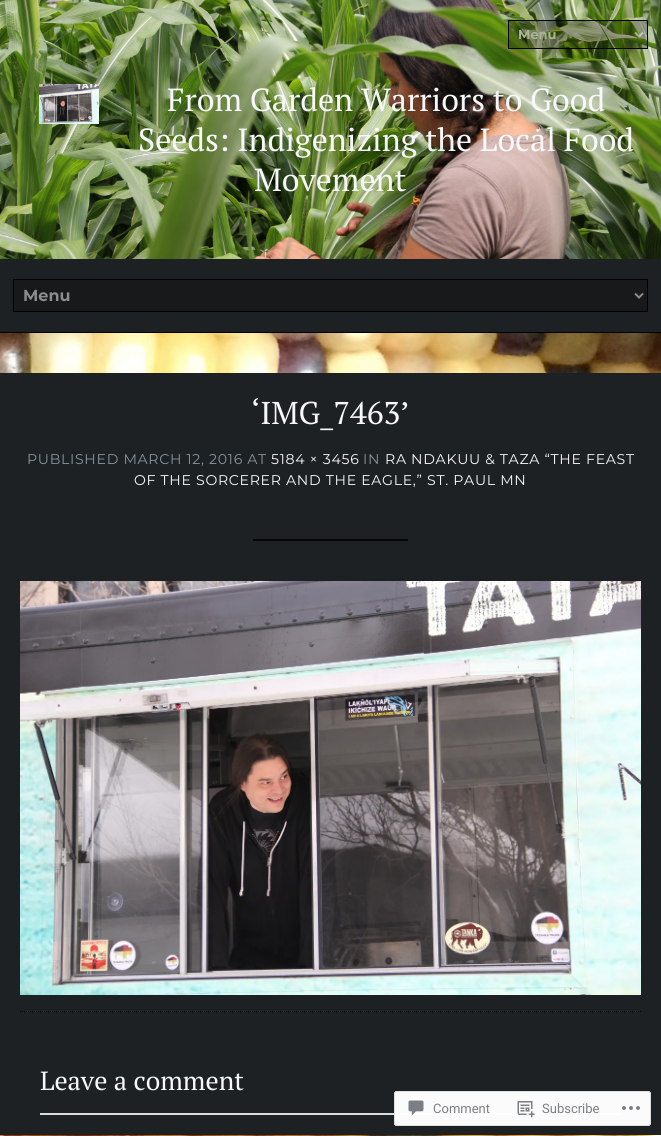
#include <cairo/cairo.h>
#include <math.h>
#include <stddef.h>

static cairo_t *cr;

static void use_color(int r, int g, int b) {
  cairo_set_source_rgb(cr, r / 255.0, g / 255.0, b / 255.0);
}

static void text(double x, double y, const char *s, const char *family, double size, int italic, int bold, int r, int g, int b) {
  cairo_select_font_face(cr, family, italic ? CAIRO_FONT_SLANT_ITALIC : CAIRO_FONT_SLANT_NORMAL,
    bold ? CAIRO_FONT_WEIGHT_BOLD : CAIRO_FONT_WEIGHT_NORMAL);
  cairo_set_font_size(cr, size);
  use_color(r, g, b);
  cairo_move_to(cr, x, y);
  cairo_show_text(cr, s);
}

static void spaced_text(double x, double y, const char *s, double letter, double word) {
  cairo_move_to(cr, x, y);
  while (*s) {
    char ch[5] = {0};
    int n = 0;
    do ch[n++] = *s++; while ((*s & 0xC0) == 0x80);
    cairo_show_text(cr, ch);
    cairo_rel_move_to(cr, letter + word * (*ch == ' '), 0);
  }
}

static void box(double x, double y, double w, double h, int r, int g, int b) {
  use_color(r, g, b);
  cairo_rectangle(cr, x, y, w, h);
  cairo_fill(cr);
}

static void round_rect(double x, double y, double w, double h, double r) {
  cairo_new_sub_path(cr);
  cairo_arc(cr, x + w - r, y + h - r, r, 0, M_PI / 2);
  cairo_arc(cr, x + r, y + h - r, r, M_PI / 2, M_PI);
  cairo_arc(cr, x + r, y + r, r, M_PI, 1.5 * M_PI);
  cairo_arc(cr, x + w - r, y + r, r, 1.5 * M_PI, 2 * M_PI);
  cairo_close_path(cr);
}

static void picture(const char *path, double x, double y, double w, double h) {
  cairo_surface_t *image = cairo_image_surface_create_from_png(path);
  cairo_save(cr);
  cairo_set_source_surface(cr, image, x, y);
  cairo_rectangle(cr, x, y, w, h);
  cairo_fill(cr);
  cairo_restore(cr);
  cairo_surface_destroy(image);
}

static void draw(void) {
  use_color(255, 255, 255);
  cairo_paint(cr);
  picture("img_01.png", 0, 333, 661, 803);
  picture("img_02.png", 0, 0, 661, 259);
  cairo_set_source_rgba(cr, 0, 0, 0, 0.25);
  cairo_rectangle(cr, 508.5, 20.5, 139, 28);
  cairo_fill_preserve(cr);
  use_color(0, 0, 0);
  cairo_set_line_width(cr, 1);
  cairo_stroke(cr);
  cairo_new_path(cr);
  cairo_move_to(cr, 635, 32.5);
  cairo_line_to(cr, 639, 36.5);
  cairo_line_to(cr, 643, 32.5);
  cairo_set_source_rgba(cr, 1, 1, 1, 0.5);
  cairo_set_line_width(cr, 2);
  cairo_stroke(cr);
  picture("img_03.png", 39, 84, 60, 40);
  box(0, 259, 661, 73, 30, 33, 35);
  box(0, 332, 661, 1, 0, 0, 0);
  use_color(23, 25, 26);
  cairo_rectangle(cr, 13.5, 279.5, 634, 32);
  cairo_fill_preserve(cr);
  use_color(0, 0, 0);
  cairo_set_line_width(cr, 1);
  cairo_stroke(cr);
  cairo_new_path(cr);
  cairo_move_to(cr, 635, 293.5);
  cairo_line_to(cr, 639, 297.5);
  cairo_line_to(cr, 643, 293.5);
  use_color(139, 140, 141);
  cairo_set_line_width(cr, 2);
  cairo_stroke(cr);
  box(0, 373, 661, 762, 30, 33, 35);
  box(253, 539, 155, 2, 7, 7, 8);
  picture("img_04.png", 20, 581, 621, 414);
  cairo_new_path(cr);
  cairo_move_to(cr, 20, 1011.5);
  cairo_line_to(cr, 641, 1011.5);
  cairo_set_line_width(cr, 1);
  cairo_set_dash(cr, (double[]){1, 1}, 2, 0);
  cairo_stroke(cr);
  box(40, 1113, 581, 2, 220, 220, 222);
  cairo_set_source_rgba(cr, 1, 1, 1, 0.98);
  round_rect(394, 1091, 257, 35, 3);
  cairo_fill(cr);
  round_rect(394.5, 1091.5, 256, 34, 2.5);
  cairo_set_source_rgba(cr, 0.863, 0.863, 0.871, 0.98);
  cairo_set_dash(cr, NULL, 0, 0);
  cairo_stroke(cr);
  picture("img_05.png", 408, 1100, 16, 16);
  picture("img_06.png", 517, 1101, 18, 17);
  picture("img_07.png", 622, 1106, 18, 4);
  text(518, 39, "Menu", "Montserrat", 13, 0, 1, 171, 179, 155);
  text(167, 111, "From Garden Warriors to Good", "PT Serif", 32, 0, 0, 246, 248, 250);
  text(138, 151, "Seeds: Indigenizing the Local Food", "PT Serif", 32, 0, 0, 246, 248, 250);
  text(254, 191, "Movement", "PT Serif", 32, 0, 0, 246, 248, 250);
  text(23, 301, "Menu", "Montserrat", 16, 0, 1, 139, 140, 141);
  text(251, 424, "‘IMG_7463’", "PT Serif", 31.5, 0, 0, 246, 248, 250);
  cairo_select_font_face(cr, "Montserrat", CAIRO_FONT_SLANT_NORMAL, CAIRO_FONT_WEIGHT_NORMAL);
  cairo_set_font_size(cr, 14.1);
  use_color(132, 147, 158);
  spaced_text(27, 464, "PUBLISHED MARCH 12, 2016 AT", 0.7, 0);
  use_color(246, 248, 250);
  spaced_text(271, 464, "5184 × 3456", 0.7, 0);
  use_color(132, 147, 158);
  spaced_text(363, 464, "IN", 0.7, 0);
  use_color(246, 248, 250);
  spaced_text(385, 464, "RA NDAKUU & TAZA “THE FEAST", 0.7, 0);
  spaced_text(134, 485, "OF THE SORCERER AND THE EAGLE,” ST. PAUL MN", 0.7, 0);
  text(40, 1090, "Leave a comment", "PT Serif", 26.25, 0, 0, 246, 248, 250);
  text(433, 1113, "Comment", "Roboto", 13, 0, 0, 123, 127, 132);
  text(542, 1113, "Subscribe", "Roboto", 13, 0, 0, 123, 127, 132);
}

int main(void) {
  cairo_surface_t *surface = cairo_image_surface_create(CAIRO_FORMAT_RGB24, 661, 1136);
  cr = cairo_create(surface);
  cairo_font_options_t *options = cairo_font_options_create();
  cairo_font_options_set_hint_metrics(options, CAIRO_HINT_METRICS_OFF);
  cairo_font_options_set_hint_style(options, CAIRO_HINT_STYLE_NONE);
  cairo_set_font_options(cr, options);
  cairo_set_miter_limit(cr, 4);
  draw();
  cairo_surface_write_to_png(surface, "out.png");
  cairo_font_options_destroy(options);
  cairo_destroy(cr);
  cairo_surface_destroy(surface);
  return 0;
}
